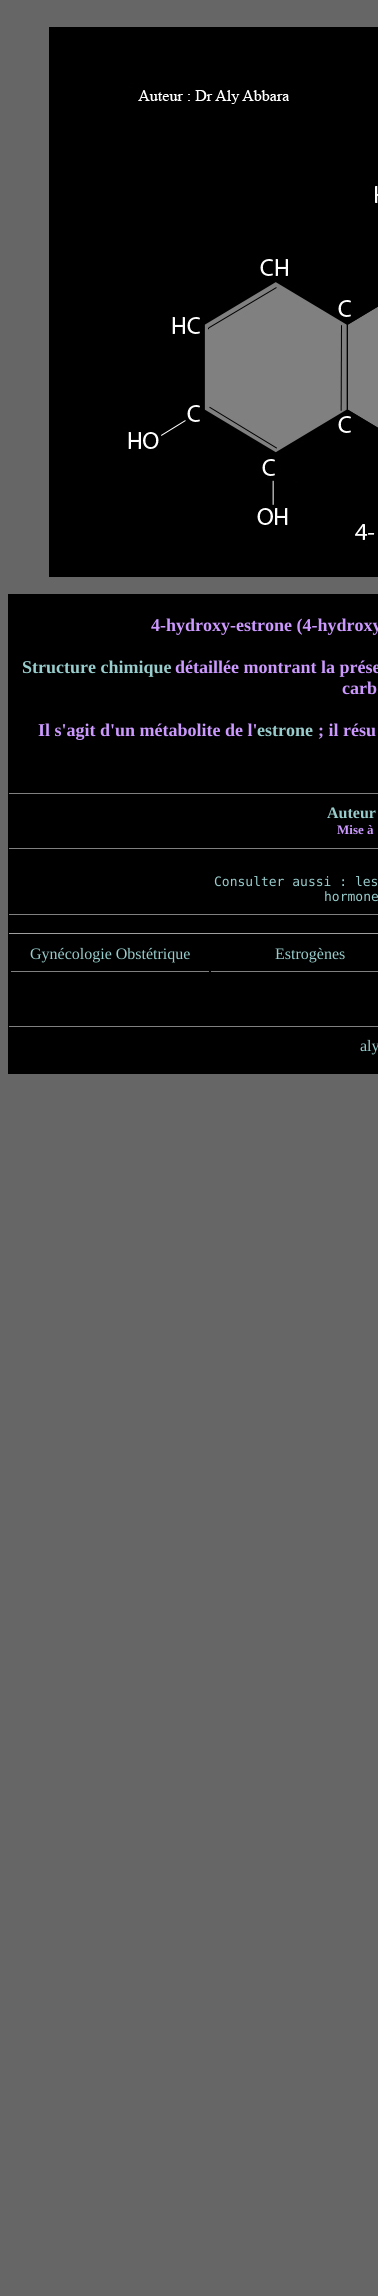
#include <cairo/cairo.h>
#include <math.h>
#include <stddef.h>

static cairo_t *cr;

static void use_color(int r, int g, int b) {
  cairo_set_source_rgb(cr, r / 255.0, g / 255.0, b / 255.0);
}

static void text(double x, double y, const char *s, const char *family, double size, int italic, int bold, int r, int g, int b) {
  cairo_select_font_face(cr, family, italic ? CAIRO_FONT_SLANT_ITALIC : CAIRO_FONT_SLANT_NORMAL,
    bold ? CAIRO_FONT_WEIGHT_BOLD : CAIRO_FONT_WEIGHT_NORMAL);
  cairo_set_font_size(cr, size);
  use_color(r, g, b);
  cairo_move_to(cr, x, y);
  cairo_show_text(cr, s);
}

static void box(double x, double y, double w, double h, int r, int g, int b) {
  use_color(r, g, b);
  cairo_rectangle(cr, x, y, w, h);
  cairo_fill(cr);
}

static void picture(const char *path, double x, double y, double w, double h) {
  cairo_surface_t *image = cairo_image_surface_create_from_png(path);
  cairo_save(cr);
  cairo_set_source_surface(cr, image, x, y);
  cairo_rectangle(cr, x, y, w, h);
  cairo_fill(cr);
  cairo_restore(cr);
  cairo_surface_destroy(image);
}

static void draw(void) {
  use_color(102, 102, 102);
  cairo_paint(cr);
  picture("img_01.png", 49, 27, 329, 550);
  box(8, 594, 370, 480, 0, 0, 0);
  box(9, 793, 369, 1, 128, 128, 128);
  box(9, 848, 369, 1, 128, 128, 128);
  box(9, 914, 369, 1, 128, 128, 128);
  box(9, 933, 369, 1, 159, 159, 159);
  box(11, 971, 198, 1, 128, 128, 128);
  box(211, 971, 167, 1, 128, 128, 128);
  box(9, 1026, 369, 1, 128, 128, 128);
  text(151, 631, "4-hydroxy-estrone (4-hydroxy", "Liberation Serif", 18, 0, 1, 204, 153, 255);
  text(22, 673, "Structure chimique", "Liberation Serif", 18, 0, 1, 153, 204, 204);
  text(175, 673, "détaillée montrant la prése", "Liberation Serif", 18, 0, 1, 204, 153, 255);
  text(342, 694, "carb", "Liberation Serif", 18, 0, 1, 204, 153, 255);
  text(38, 736, "Il s'agit d'un métabolite de l'", "Liberation Serif", 18, 0, 1, 204, 153, 255);
  text(257, 736, "estrone", "Liberation Serif", 18, 0, 1, 153, 204, 204);
  text(318, 736, "; il résu", "Liberation Serif", 18, 0, 1, 204, 153, 255);
  text(327, 818, "Auteur", "Liberation Serif", 16, 0, 1, 153, 204, 204);
  text(337, 834, "Mise à", "Liberation Serif", 13, 0, 1, 204, 153, 255);
  text(214, 886, "Consulter aussi : les", "DejaVu Sans Mono", 13, 0, 0, 153, 204, 204);
  text(324, 901, "hormone", "DejaVu Sans Mono", 13, 0, 0, 153, 204, 204);
  text(30, 959, "Gynécologie Obstétrique", "Liberation Serif", 16, 0, 0, 153, 204, 204);
  text(275, 959, "Estrogènes", "Liberation Serif", 16, 0, 0, 153, 204, 204);
  text(360, 1051, "aly", "Liberation Serif", 16, 0, 0, 153, 204, 204);
}

int main(void) {
  cairo_surface_t *surface = cairo_image_surface_create(CAIRO_FORMAT_RGB24, 378, 2296);
  cr = cairo_create(surface);
  cairo_font_options_t *options = cairo_font_options_create();
  cairo_font_options_set_hint_metrics(options, CAIRO_HINT_METRICS_OFF);
  cairo_font_options_set_hint_style(options, CAIRO_HINT_STYLE_NONE);
  cairo_set_font_options(cr, options);
  cairo_set_miter_limit(cr, 4);
  draw();
  cairo_surface_write_to_png(surface, "out.png");
  cairo_font_options_destroy(options);
  cairo_destroy(cr);
  cairo_surface_destroy(surface);
  return 0;
}
